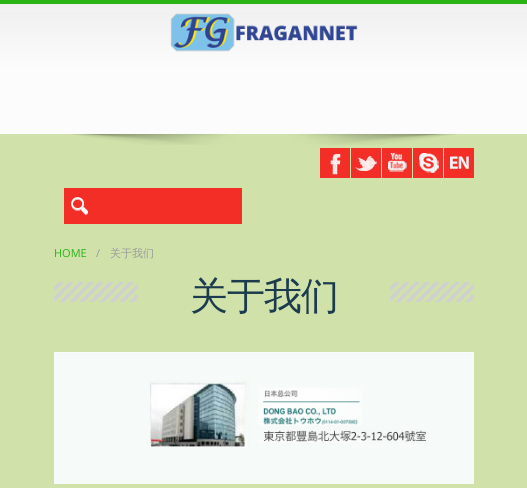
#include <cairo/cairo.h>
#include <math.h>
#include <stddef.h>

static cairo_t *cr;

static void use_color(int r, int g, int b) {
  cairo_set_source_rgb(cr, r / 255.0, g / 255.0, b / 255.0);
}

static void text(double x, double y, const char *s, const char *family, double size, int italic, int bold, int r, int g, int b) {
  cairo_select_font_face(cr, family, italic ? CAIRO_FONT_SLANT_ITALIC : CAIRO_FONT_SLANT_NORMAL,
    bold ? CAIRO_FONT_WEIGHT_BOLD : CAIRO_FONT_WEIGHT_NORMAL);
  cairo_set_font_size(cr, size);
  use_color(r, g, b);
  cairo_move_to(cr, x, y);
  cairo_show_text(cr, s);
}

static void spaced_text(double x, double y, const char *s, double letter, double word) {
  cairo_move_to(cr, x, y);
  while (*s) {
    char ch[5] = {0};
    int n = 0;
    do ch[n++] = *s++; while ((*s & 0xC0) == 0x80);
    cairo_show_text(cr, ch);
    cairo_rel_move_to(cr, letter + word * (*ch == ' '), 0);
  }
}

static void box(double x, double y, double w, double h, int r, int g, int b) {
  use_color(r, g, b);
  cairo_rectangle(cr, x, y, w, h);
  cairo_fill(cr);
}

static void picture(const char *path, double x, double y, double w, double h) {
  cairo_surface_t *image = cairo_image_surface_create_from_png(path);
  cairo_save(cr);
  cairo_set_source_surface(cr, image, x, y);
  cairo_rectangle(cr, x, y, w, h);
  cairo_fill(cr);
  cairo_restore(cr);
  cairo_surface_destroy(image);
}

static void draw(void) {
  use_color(208, 226, 170);
  cairo_paint(cr);
  box(0, 0, 527, 4, 43, 179, 22);
  picture("img_01.png", 0, 4, 527, 130);
  picture("img_02.png", 170, 13, 188, 39);
  picture("img_03.png", 71, 134, 385, 11);
  box(320, 148, 30, 30, 242, 46, 39);
  picture("img_04.png", 330, 154, 11, 21);
  box(351, 148, 30, 30, 242, 46, 39);
  picture("img_05.png", 355, 156, 22, 15);
  box(382, 148, 30, 30, 242, 46, 39);
  picture("img_06.png", 388, 153, 19, 19);
  box(413, 148, 30, 30, 242, 46, 39);
  picture("img_07.png", 419, 153, 20, 20);
  box(444, 148, 30, 30, 242, 46, 39);
  picture("img_08.png", 450, 156, 19, 13);
  box(64, 188, 178, 36, 242, 46, 39);
  picture("img_09.png", 71, 197, 17, 19);
  picture("img_10.png", 54, 282, 84, 20);
  picture("img_10.png", 390, 282, 84, 20);
  picture("img_11.png", 54, 352, 420, 132);
  text(54, 257, "HOME", "Open Sans", 11, 0, 0, 43, 179, 22);
  text(96, 257, "/", "Open Sans", 11, 0, 0, 153, 153, 153);
  text(110, 257, "关于我们", "WenQuanYi Zen Hei Medium", 11, 0, 0, 153, 153, 153);
  cairo_set_font_size(cr, 38);
  use_color(28, 60, 77);
  spaced_text(190, 309, "关于我们", -1, 0);
}

int main(void) {
  cairo_surface_t *surface = cairo_image_surface_create(CAIRO_FORMAT_RGB24, 527, 488);
  cr = cairo_create(surface);
  cairo_font_options_t *options = cairo_font_options_create();
  cairo_font_options_set_hint_metrics(options, CAIRO_HINT_METRICS_OFF);
  cairo_font_options_set_hint_style(options, CAIRO_HINT_STYLE_NONE);
  cairo_set_font_options(cr, options);
  cairo_set_miter_limit(cr, 4);
  draw();
  cairo_surface_write_to_png(surface, "out.png");
  cairo_font_options_destroy(options);
  cairo_destroy(cr);
  cairo_surface_destroy(surface);
  return 0;
}
